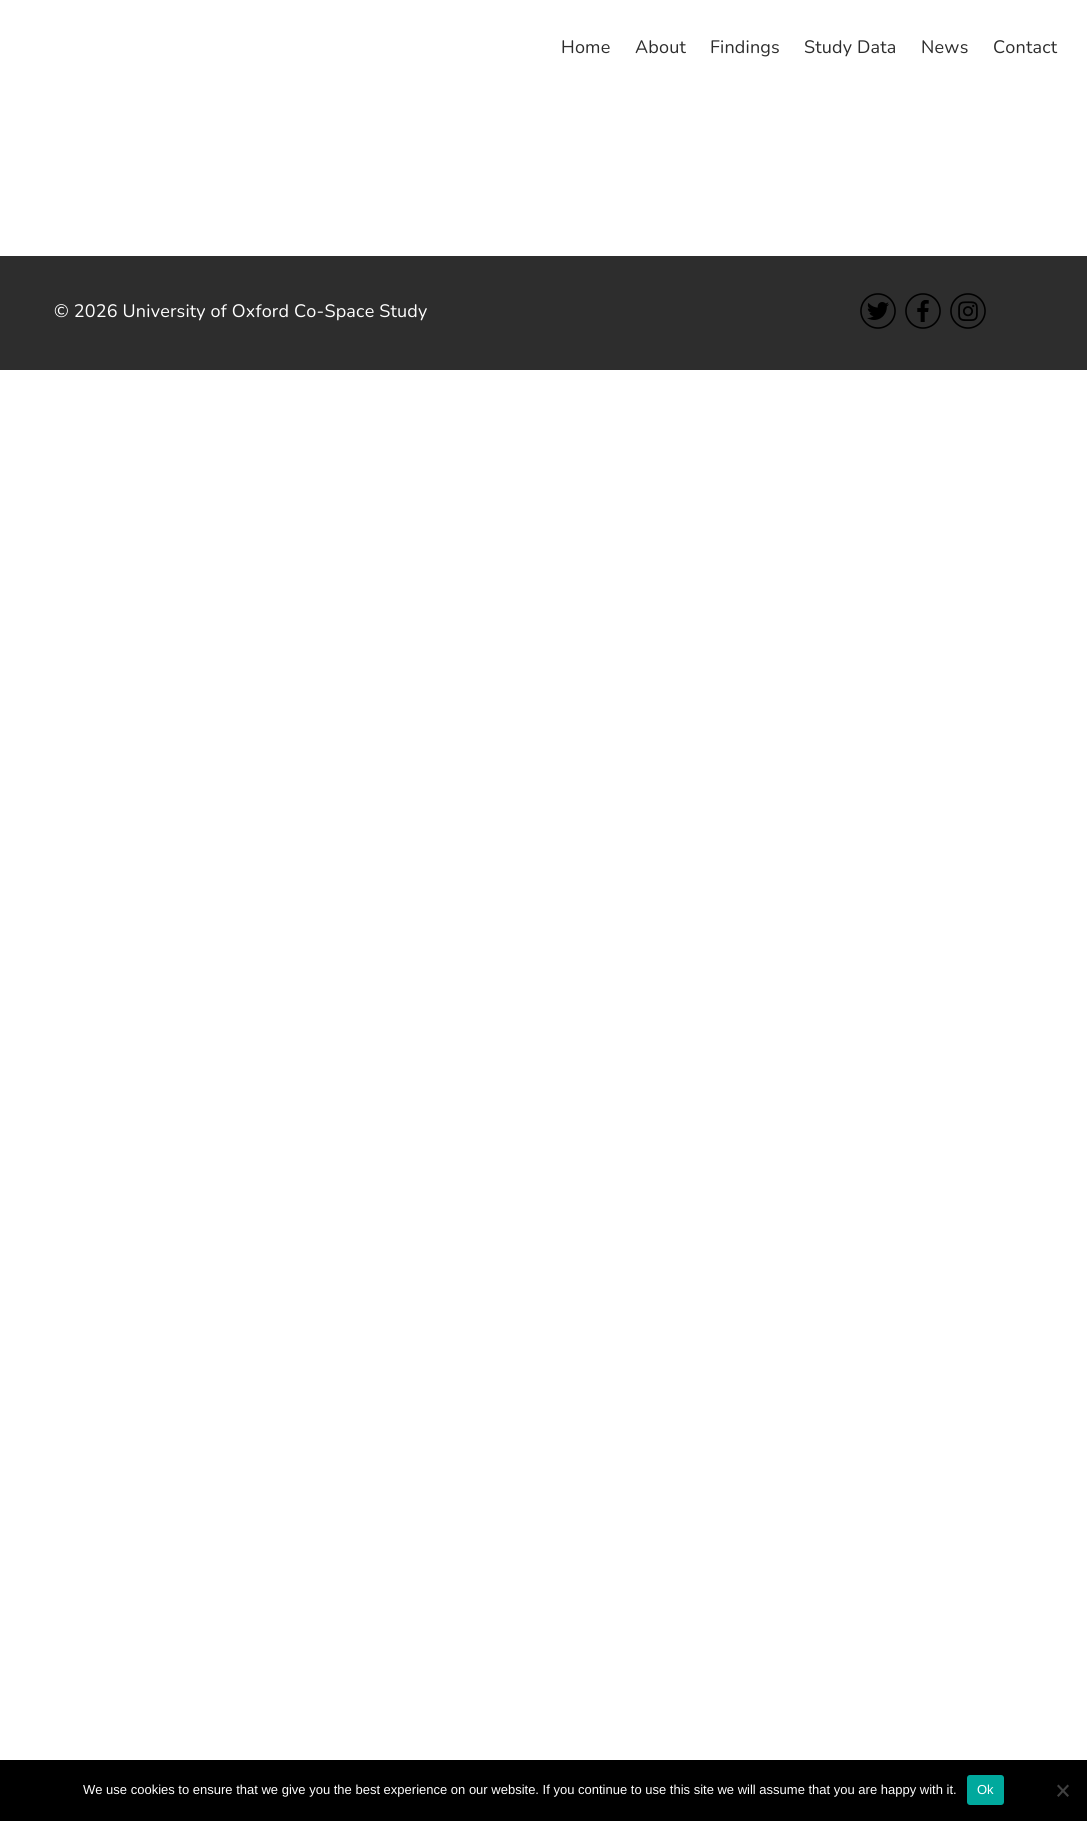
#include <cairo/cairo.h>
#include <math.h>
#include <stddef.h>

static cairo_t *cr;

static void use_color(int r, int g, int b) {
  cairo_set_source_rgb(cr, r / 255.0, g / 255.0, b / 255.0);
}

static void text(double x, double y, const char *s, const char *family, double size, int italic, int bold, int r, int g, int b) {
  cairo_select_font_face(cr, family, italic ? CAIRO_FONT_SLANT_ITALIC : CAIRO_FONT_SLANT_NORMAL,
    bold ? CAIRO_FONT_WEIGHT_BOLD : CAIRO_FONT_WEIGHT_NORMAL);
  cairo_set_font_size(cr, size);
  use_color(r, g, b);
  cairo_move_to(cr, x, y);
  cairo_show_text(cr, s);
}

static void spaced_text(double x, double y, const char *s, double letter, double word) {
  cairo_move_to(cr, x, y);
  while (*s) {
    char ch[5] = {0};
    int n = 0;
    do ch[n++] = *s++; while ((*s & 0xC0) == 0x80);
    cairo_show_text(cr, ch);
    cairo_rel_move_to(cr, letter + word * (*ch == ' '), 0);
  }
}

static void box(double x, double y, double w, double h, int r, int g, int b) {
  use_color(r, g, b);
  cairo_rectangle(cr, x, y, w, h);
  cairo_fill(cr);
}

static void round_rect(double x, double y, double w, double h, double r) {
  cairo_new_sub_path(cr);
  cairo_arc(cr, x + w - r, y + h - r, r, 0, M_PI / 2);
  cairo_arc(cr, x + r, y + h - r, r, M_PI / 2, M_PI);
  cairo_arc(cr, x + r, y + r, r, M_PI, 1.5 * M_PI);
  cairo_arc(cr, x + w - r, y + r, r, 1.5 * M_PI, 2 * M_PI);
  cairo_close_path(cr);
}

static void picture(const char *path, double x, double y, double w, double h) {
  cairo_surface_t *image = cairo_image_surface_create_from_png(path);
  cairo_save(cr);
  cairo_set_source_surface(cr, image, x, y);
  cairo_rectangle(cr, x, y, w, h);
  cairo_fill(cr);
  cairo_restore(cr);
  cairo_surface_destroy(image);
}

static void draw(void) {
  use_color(255, 255, 255);
  cairo_paint(cr);
  box(0, 256, 1087, 114, 45, 45, 45);
  picture("img_01.png", 860, 293, 36, 36);
  picture("img_02.png", 905, 293, 36, 36);
  picture("img_03.png", 950, 293, 36, 36);
  box(0, 1760, 1087, 61, 0, 0, 0);
  use_color(0, 169, 157);
  round_rect(967, 1775, 37, 30, 3);
  cairo_fill(cr);
  use_color(64, 64, 64);
  cairo_new_path(cr);
  cairo_move_to(cr, 1067.5, 1784.5);
  cairo_line_to(cr, 1069, 1786);
  cairo_line_to(cr, 1058.5, 1797);
  cairo_line_to(cr, 1057, 1795.5);
  cairo_close_path(cr);
  cairo_fill(cr);
  cairo_new_path(cr);
  cairo_move_to(cr, 1057, 1786);
  cairo_line_to(cr, 1058.5, 1784.5);
  cairo_line_to(cr, 1069, 1795.5);
  cairo_line_to(cr, 1067.5, 1797);
  cairo_close_path(cr);
  cairo_fill(cr);
  cairo_select_font_face(cr, "Nunito", CAIRO_FONT_SLANT_NORMAL, CAIRO_FONT_WEIGHT_NORMAL);
  cairo_set_font_size(cr, 18);
  use_color(45, 45, 45);
  spaced_text(561, 53, "Home", 0.2, 0);
  spaced_text(635, 53, "About", 0.2, 0);
  spaced_text(710, 53, "Findings", 0.2, 0);
  spaced_text(804, 53, "Study Data", 0.2, 0);
  spaced_text(921, 53, "News", 0.2, 0);
  spaced_text(993, 53, "Contact", 0.2, 0);
  use_color(255, 255, 255);
  spaced_text(54, 317, "© 2026 University of Oxford Co-Space Study", 0.2, 0);
  text(83, 1794, "We use cookies to ensure that we give you the best experience on our website. If you continue to use this site we will assume that you are happy with it.", "Liberation Sans", 13, 0, 0, 255, 255, 255);
  text(977, 1794, "Ok", "Liberation Sans", 13, 0, 0, 255, 255, 255);
}

int main(void) {
  cairo_surface_t *surface = cairo_image_surface_create(CAIRO_FORMAT_RGB24, 1087, 1821);
  cr = cairo_create(surface);
  cairo_font_options_t *options = cairo_font_options_create();
  cairo_font_options_set_hint_metrics(options, CAIRO_HINT_METRICS_OFF);
  cairo_font_options_set_hint_style(options, CAIRO_HINT_STYLE_NONE);
  cairo_set_font_options(cr, options);
  cairo_set_miter_limit(cr, 4);
  draw();
  cairo_surface_write_to_png(surface, "out.png");
  cairo_font_options_destroy(options);
  cairo_destroy(cr);
  cairo_surface_destroy(surface);
  return 0;
}
